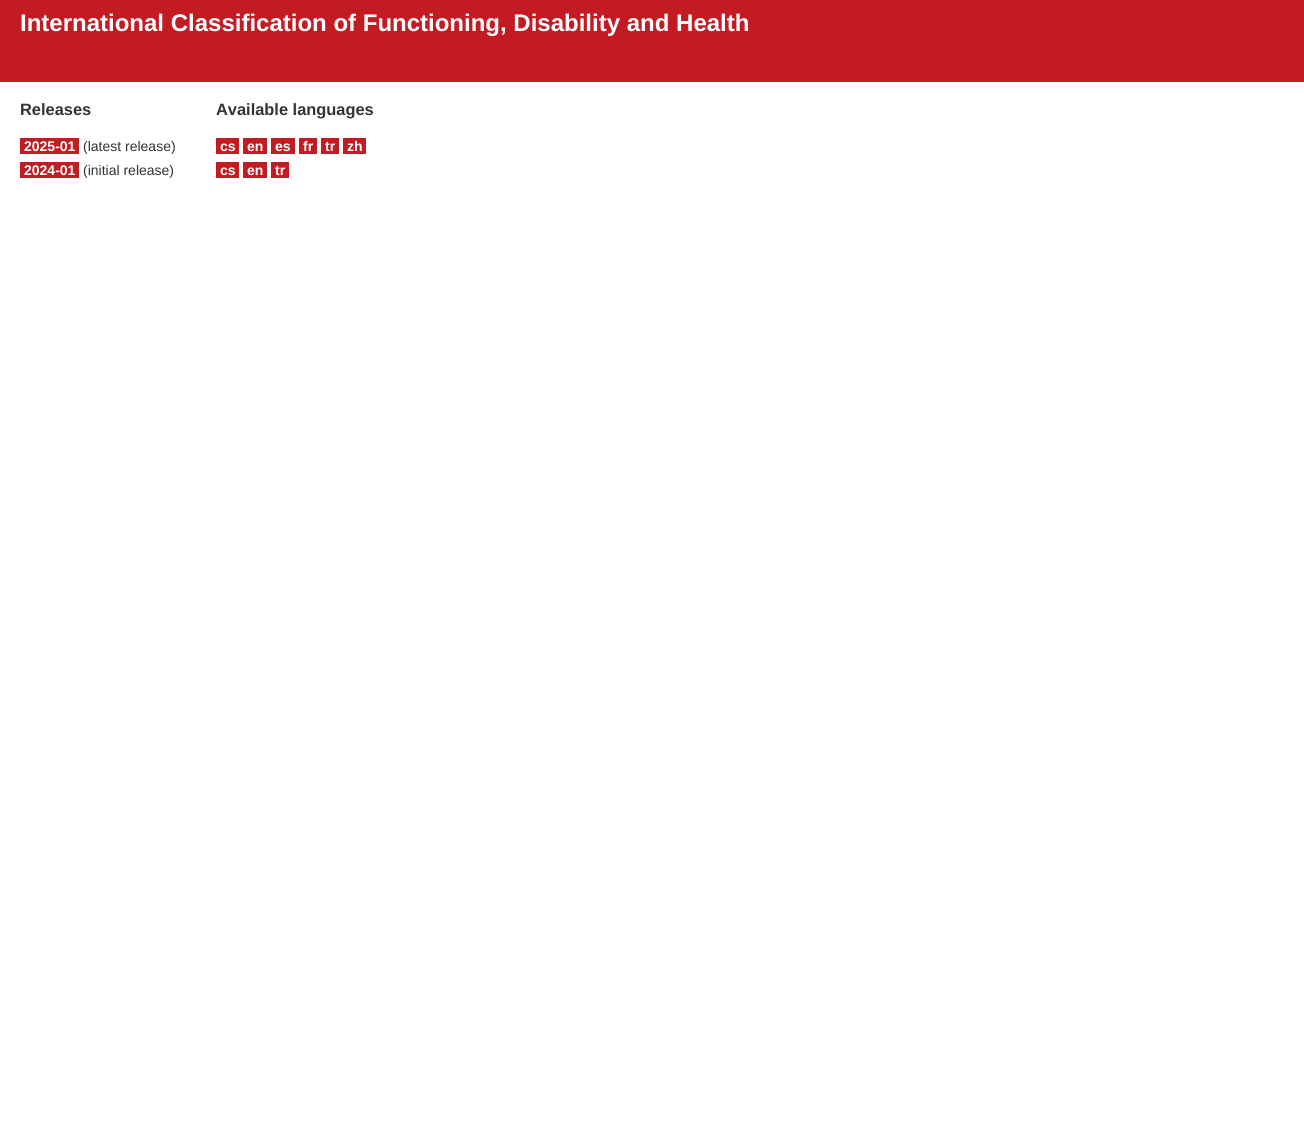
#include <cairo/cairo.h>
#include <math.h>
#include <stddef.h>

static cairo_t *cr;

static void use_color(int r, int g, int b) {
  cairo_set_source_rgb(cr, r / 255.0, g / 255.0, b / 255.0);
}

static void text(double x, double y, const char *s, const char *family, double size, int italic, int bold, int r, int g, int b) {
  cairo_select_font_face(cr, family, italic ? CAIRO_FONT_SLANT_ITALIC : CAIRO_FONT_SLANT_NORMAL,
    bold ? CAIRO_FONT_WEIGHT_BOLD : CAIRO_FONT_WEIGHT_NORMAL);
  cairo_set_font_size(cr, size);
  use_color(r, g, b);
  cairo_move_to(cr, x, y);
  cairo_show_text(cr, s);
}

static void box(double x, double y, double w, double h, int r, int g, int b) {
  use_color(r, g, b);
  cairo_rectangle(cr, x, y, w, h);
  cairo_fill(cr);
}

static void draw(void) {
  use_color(255, 255, 255);
  cairo_paint(cr);
  box(0, 0, 1304, 82, 195, 27, 36);
  box(20, 138, 59, 16, 195, 27, 36);
  box(216, 138, 23, 16, 195, 27, 36);
  box(243, 138, 24, 16, 195, 27, 36);
  box(271, 138, 24, 16, 195, 27, 36);
  box(299, 138, 18, 16, 195, 27, 36);
  box(321, 138, 18, 16, 195, 27, 36);
  box(343, 138, 23, 16, 195, 27, 36);
  box(20, 162, 59, 16, 195, 27, 36);
  box(216, 162, 23, 16, 195, 27, 36);
  box(243, 162, 24, 16, 195, 27, 36);
  box(271, 162, 18, 16, 195, 27, 36);
  text(20, 31, "International Classification of Functioning, Disability and Health", "Liberation Sans", 24, 0, 1, 255, 255, 255);
  text(20, 115, "Releases", "Liberation Sans", 16.4, 0, 1, 51, 51, 51);
  text(216, 115, "Available languages", "Liberation Sans", 16.4, 0, 1, 51, 51, 51);
  text(24, 151, "2025-01", "Liberation Sans", 14, 0, 1, 255, 255, 255);
  text(83, 151, "(latest release)", "Liberation Sans", 14, 0, 0, 51, 51, 51);
  text(220, 151, "cs", "Liberation Sans", 14, 0, 1, 255, 255, 255);
  text(247, 151, "en", "Liberation Sans", 14, 0, 1, 255, 255, 255);
  text(275, 151, "es", "Liberation Sans", 14, 0, 1, 255, 255, 255);
  text(303, 151, "fr", "Liberation Sans", 14, 0, 1, 255, 255, 255);
  text(325, 151, "tr", "Liberation Sans", 14, 0, 1, 255, 255, 255);
  text(347, 151, "zh", "Liberation Sans", 14, 0, 1, 255, 255, 255);
  text(24, 175, "2024-01", "Liberation Sans", 14, 0, 1, 255, 255, 255);
  text(83, 175, "(initial release)", "Liberation Sans", 14, 0, 0, 51, 51, 51);
  text(220, 175, "cs", "Liberation Sans", 14, 0, 1, 255, 255, 255);
  text(247, 175, "en", "Liberation Sans", 14, 0, 1, 255, 255, 255);
  text(275, 175, "tr", "Liberation Sans", 14, 0, 1, 255, 255, 255);
}

int main(void) {
  cairo_surface_t *surface = cairo_image_surface_create(CAIRO_FORMAT_RGB24, 1304, 1146);
  cr = cairo_create(surface);
  cairo_font_options_t *options = cairo_font_options_create();
  cairo_font_options_set_hint_metrics(options, CAIRO_HINT_METRICS_OFF);
  cairo_font_options_set_hint_style(options, CAIRO_HINT_STYLE_NONE);
  cairo_set_font_options(cr, options);
  cairo_set_miter_limit(cr, 4);
  draw();
  cairo_surface_write_to_png(surface, "out.png");
  cairo_font_options_destroy(options);
  cairo_destroy(cr);
  cairo_surface_destroy(surface);
  return 0;
}
